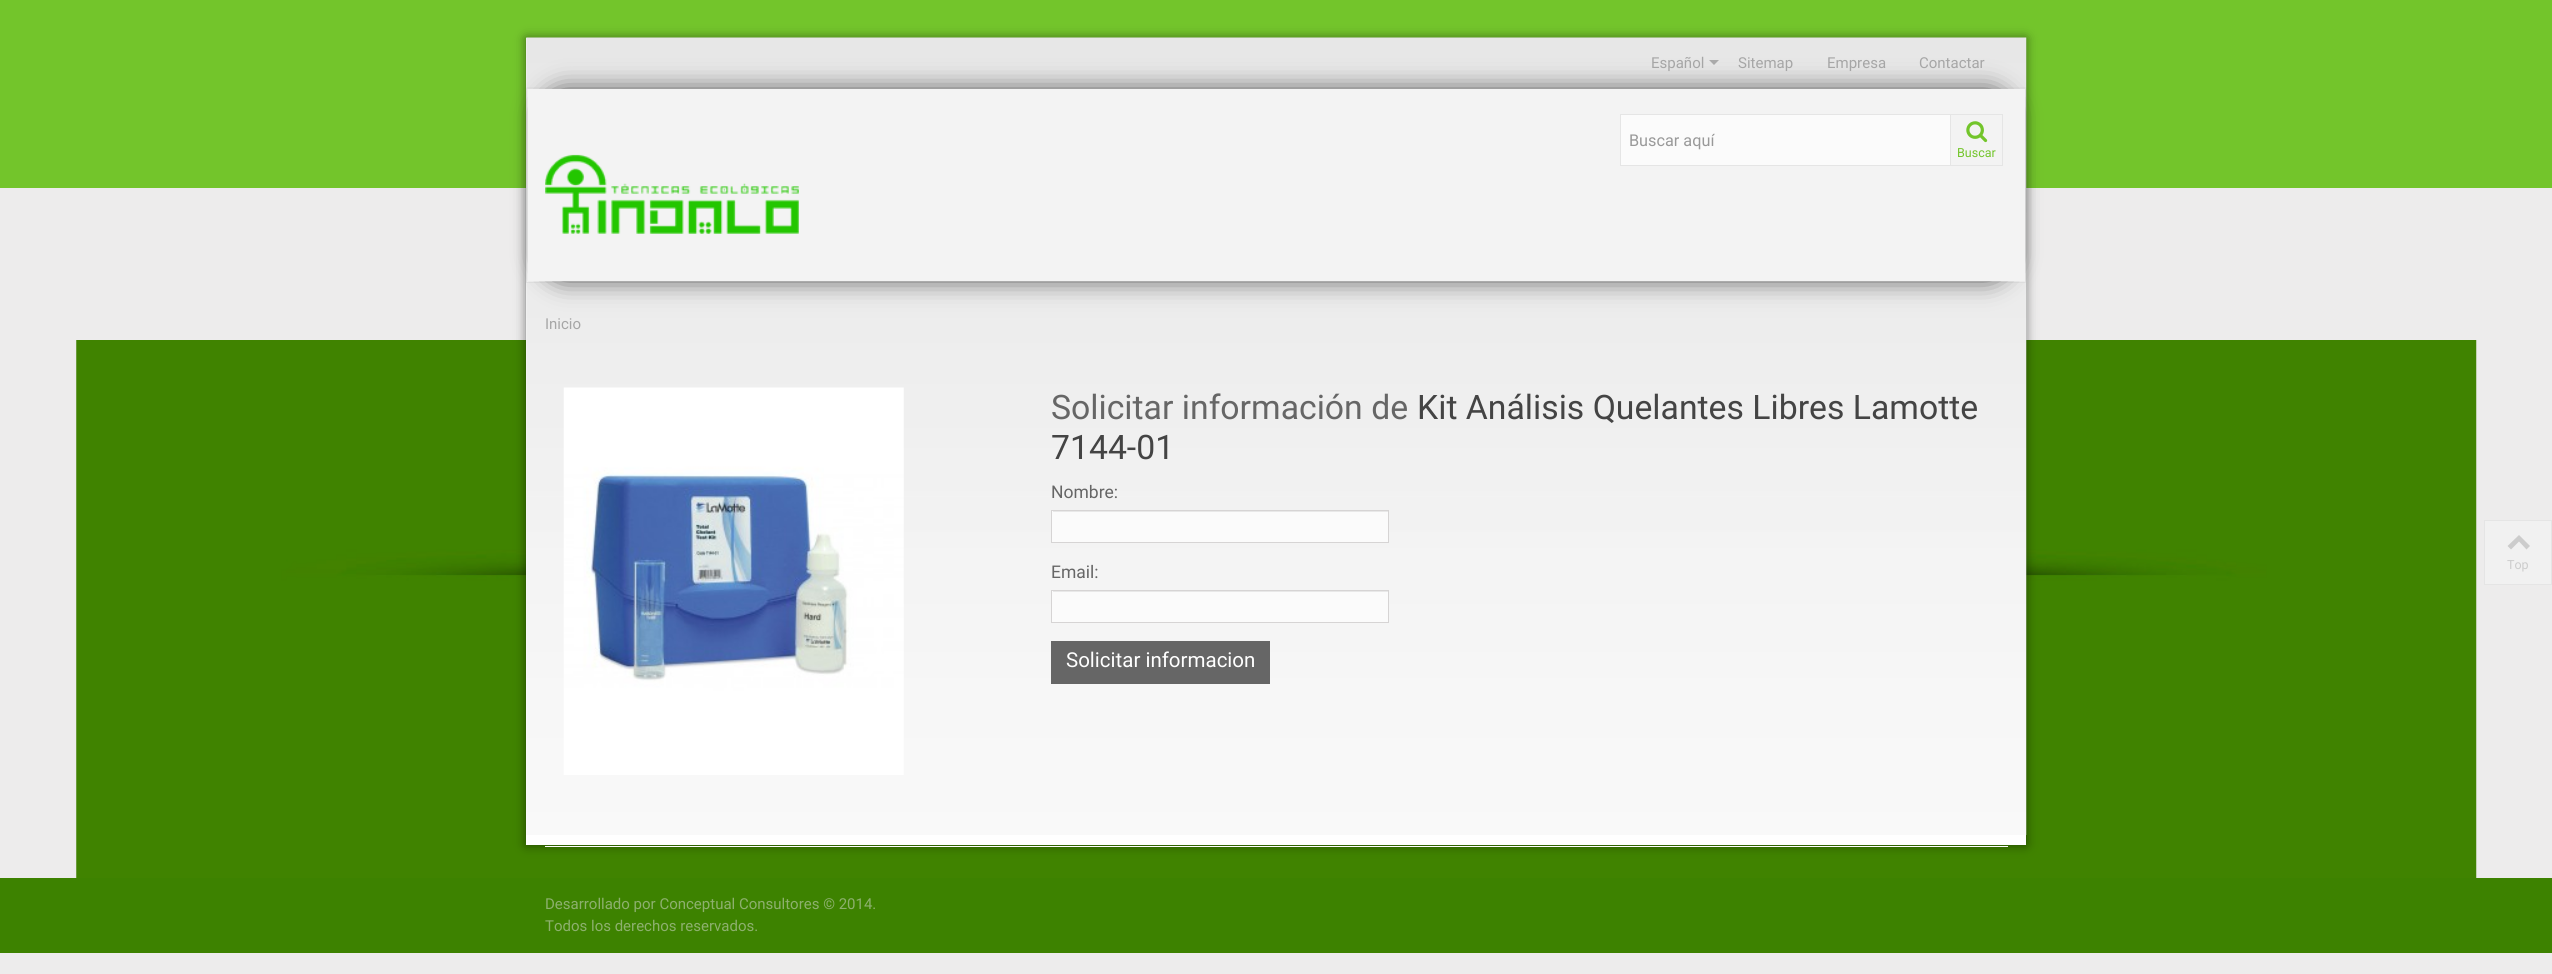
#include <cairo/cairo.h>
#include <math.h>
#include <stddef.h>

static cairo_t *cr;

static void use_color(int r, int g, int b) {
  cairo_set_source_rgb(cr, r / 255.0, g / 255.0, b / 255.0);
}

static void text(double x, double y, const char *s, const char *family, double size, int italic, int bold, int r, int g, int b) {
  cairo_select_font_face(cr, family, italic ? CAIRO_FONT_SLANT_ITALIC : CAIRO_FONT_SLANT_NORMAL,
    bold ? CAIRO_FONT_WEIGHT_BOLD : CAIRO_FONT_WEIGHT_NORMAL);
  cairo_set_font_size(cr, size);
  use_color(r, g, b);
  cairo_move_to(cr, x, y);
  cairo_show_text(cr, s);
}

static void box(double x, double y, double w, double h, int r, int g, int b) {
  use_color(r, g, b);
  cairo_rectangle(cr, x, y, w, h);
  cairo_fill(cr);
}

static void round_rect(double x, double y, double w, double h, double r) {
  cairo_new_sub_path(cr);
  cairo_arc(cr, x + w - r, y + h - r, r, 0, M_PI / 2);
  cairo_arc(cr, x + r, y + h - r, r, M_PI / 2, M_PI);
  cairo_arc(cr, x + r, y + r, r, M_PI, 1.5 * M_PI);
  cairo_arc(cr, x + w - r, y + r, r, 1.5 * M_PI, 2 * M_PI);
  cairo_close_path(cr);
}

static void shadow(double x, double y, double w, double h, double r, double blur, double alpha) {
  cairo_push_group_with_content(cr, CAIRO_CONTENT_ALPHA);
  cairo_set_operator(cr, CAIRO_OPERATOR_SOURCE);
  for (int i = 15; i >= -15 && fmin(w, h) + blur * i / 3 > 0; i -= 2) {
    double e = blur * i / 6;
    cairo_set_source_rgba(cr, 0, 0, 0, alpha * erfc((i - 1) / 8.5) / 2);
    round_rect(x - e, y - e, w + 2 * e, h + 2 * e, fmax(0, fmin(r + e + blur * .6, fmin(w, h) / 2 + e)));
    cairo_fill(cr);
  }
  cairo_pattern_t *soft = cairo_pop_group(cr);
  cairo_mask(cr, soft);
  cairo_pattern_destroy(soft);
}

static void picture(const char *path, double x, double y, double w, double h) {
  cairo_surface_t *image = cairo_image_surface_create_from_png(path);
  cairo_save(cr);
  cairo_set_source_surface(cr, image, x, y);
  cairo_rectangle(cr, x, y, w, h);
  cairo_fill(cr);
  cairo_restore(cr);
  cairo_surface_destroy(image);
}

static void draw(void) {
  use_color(237, 236, 236);
  cairo_paint(cr);
  picture("img_01.png", 76, 340, 2401, 538);
  box(0, 0, 2552, 188, 115, 197, 43);
  use_color(0, 0, 0);
  shadow(526, 38, 1500, 807, 0, 5.5, 0.5);
  box(526, 38, 1500, 807, 255, 255, 255);
  picture("img_02.png", 526, 37, 1501, 798);
  use_color(243, 243, 243);
  cairo_rectangle(cr, 526.5, 88.5, 1499, 194);
  cairo_fill_preserve(cr);
  use_color(227, 227, 227);
  cairo_set_line_width(cr, 1);
  cairo_stroke(cr);
  use_color(0, 0, 0);
  shadow(540, 89, 1473, 192, 25, 12.5, 0.6);
  use_color(170, 170, 170);
  cairo_new_path(cr);
  cairo_move_to(cr, 1709, 60);
  cairo_line_to(cr, 1719, 60);
  cairo_line_to(cr, 1714, 65);
  cairo_close_path(cr);
  cairo_fill(cr);
  box(528, 89, 1497, 192, 243, 243, 243);
  box(1621, 115, 329, 50, 251, 251, 251);
  box(1620, 114, 330, 1, 229, 229, 229);
  box(1620, 165, 330, 1, 229, 229, 229);
  box(1620, 114, 1, 52, 229, 229, 229);
  cairo_rectangle(cr, 1950.5, 114.5, 52, 51);
  cairo_stroke(cr);
  picture("img_03.png", 1966, 121, 22, 22);
  picture("img_04.png", 545, 154, 254, 80);
  picture("img_05.png", 563, 387, 341, 388);
  box(1052, 511, 336, 31, 251, 251, 251);
  box(1053, 511, 335, 1, 232, 232, 232);
  cairo_rectangle(cr, 1051.5, 510.5, 337, 32);
  use_color(214, 212, 212);
  cairo_stroke(cr);
  box(1052, 591, 336, 31, 251, 251, 251);
  box(1053, 591, 335, 1, 232, 232, 232);
  cairo_rectangle(cr, 1051.5, 590.5, 337, 32);
  use_color(214, 212, 212);
  cairo_stroke(cr);
  box(1051, 641, 219, 43, 102, 102, 102);
  box(545, 846, 1463, 1, 255, 255, 255);
  box(0, 878, 2552, 75, 61, 130, 0);
  box(2485, 521, 66, 63, 241, 241, 241);
  box(2484, 520, 68, 1, 229, 229, 229);
  box(2551, 520, 1, 65, 229, 229, 229);
  box(2484, 584, 68, 1, 229, 229, 229);
  box(2484, 521, 1, 63, 229, 229, 229);
  use_color(204, 204, 204);
  cairo_new_path(cr);
  cairo_move_to(cr, 2507.5, 546);
  cairo_line_to(cr, 2519, 535);
  cairo_line_to(cr, 2530, 546);
  cairo_line_to(cr, 2526.5, 549.5);
  cairo_line_to(cr, 2519, 541.5);
  cairo_line_to(cr, 2511, 549.5);
  cairo_close_path(cr);
  cairo_fill(cr);
  text(1651, 68, "Español", "Roboto", 15, 0, 0, 166, 166, 166);
  text(1738, 68, "Sitemap", "Roboto", 15, 0, 0, 166, 166, 166);
  text(1827, 68, "Empresa", "Roboto", 15, 0, 0, 166, 166, 166);
  text(1919, 68, "Contactar", "Roboto", 15, 0, 0, 166, 166, 166);
  text(1629, 146, "Buscar aquí", "Roboto", 16.25, 0, 0, 153, 153, 153);
  text(1957, 157, "Buscar", "Roboto", 12.5, 0, 0, 115, 197, 43);
  text(545, 329, "Inicio", "Roboto", 15, 0, 0, 166, 166, 166);
  text(1051, 419, "Solicitar información de", "Roboto", 33.75, 0, 0, 102, 102, 102);
  text(1417, 419, "Kit Análisis Quelantes Libres Lamotte", "Roboto", 33.75, 0, 0, 68, 68, 68);
  text(1051, 459, "7144-01", "Roboto", 33.75, 0, 0, 68, 68, 68);
  text(1051, 498, "Nombre:", "Roboto", 17.5, 0, 0, 102, 102, 102);
  text(1051, 578, "Email:", "Roboto", 17.5, 0, 0, 102, 102, 102);
  text(1066, 667, "Solicitar informacion", "Roboto", 20.5, 0, 0, 255, 255, 255);
  text(545, 909, "Desarrollado por Conceptual Consultores © 2014.", "Roboto", 15, 0, 0, 141, 176, 110);
  text(545, 931, "Todos los derechos reservados.", "Roboto", 15, 0, 0, 141, 176, 110);
  text(2507, 569, "Top", "Roboto", 12.5, 0, 0, 204, 204, 204);
}

int main(void) {
  cairo_surface_t *surface = cairo_image_surface_create(CAIRO_FORMAT_RGB24, 2552, 974);
  cr = cairo_create(surface);
  cairo_font_options_t *options = cairo_font_options_create();
  cairo_font_options_set_hint_metrics(options, CAIRO_HINT_METRICS_OFF);
  cairo_font_options_set_hint_style(options, CAIRO_HINT_STYLE_NONE);
  cairo_set_font_options(cr, options);
  cairo_set_miter_limit(cr, 4);
  draw();
  cairo_surface_write_to_png(surface, "out.png");
  cairo_font_options_destroy(options);
  cairo_destroy(cr);
  cairo_surface_destroy(surface);
  return 0;
}
